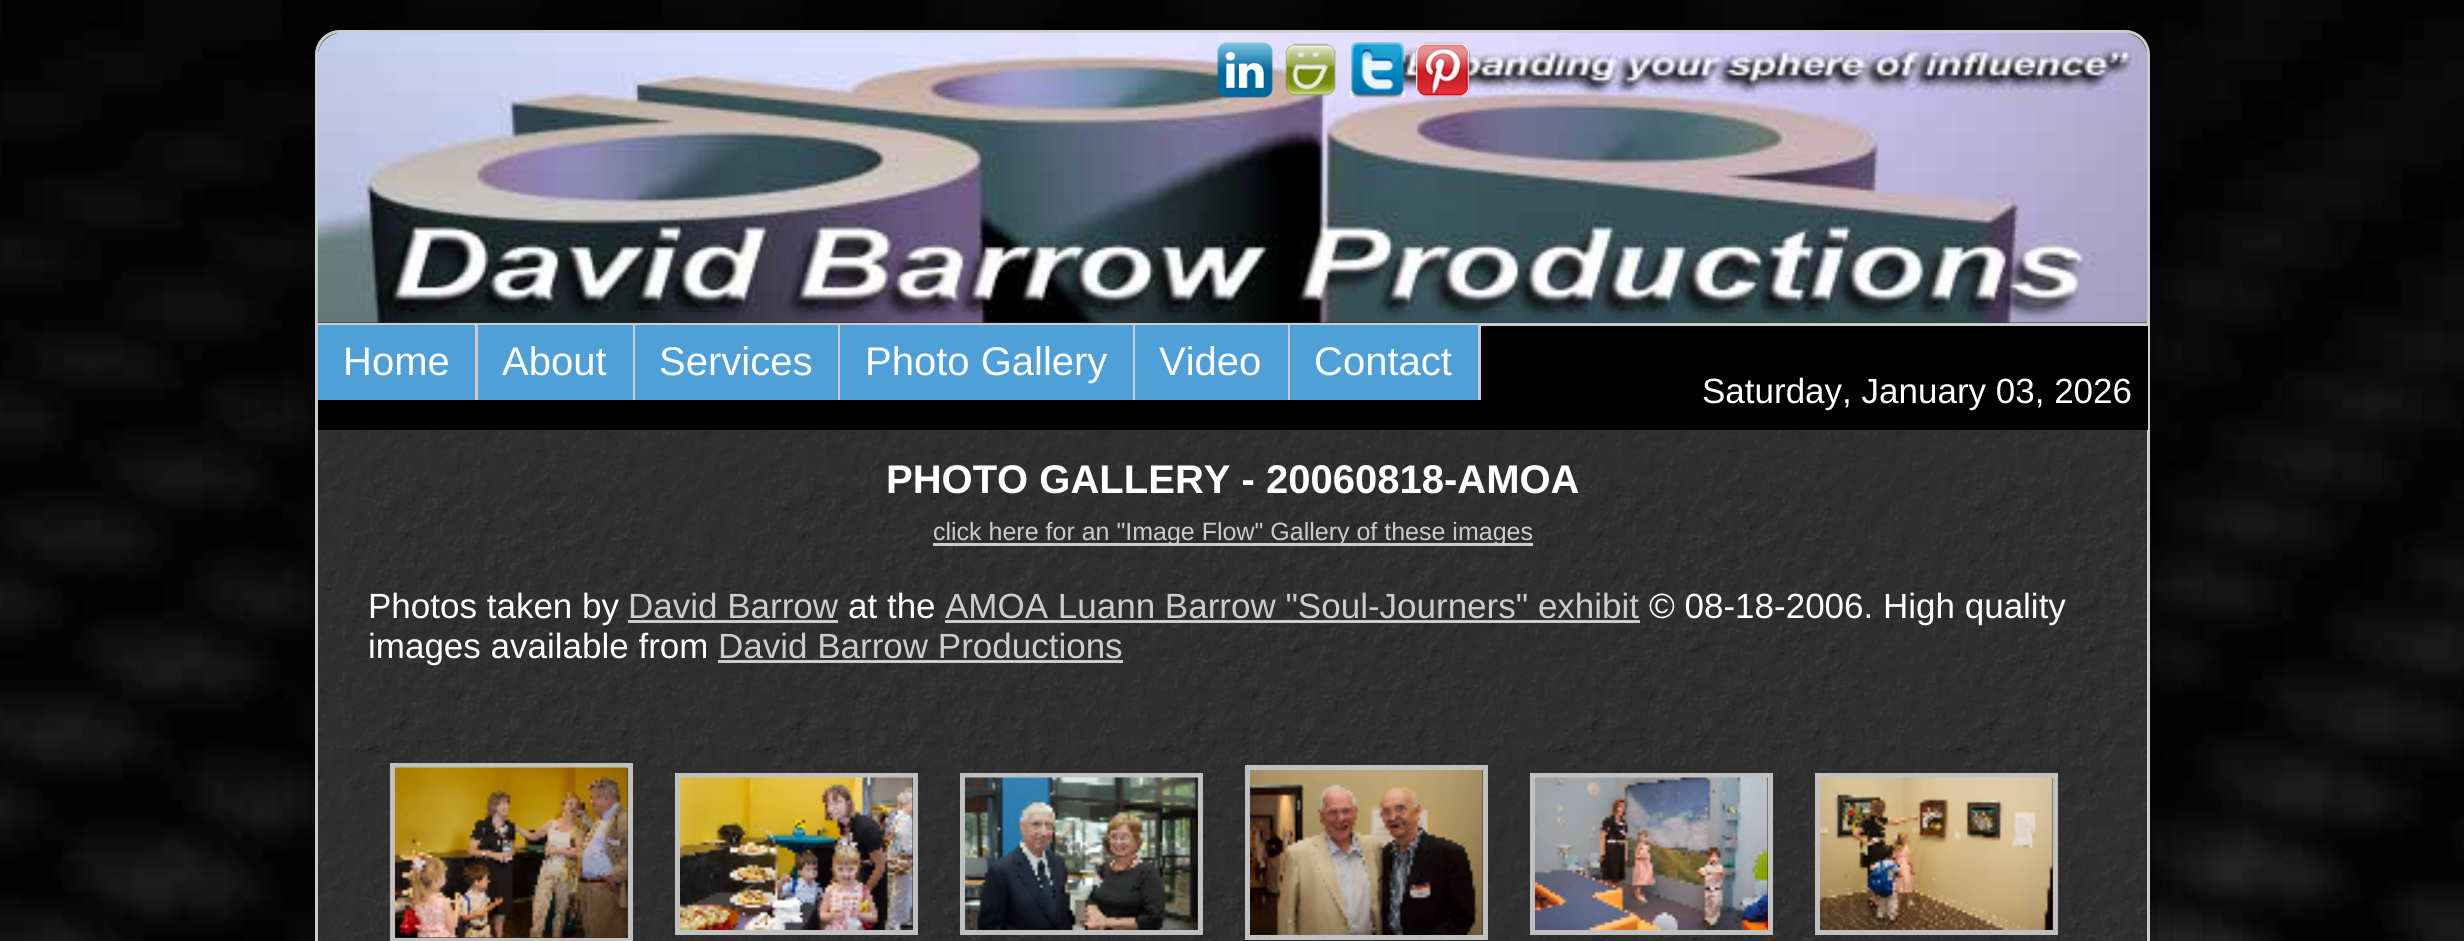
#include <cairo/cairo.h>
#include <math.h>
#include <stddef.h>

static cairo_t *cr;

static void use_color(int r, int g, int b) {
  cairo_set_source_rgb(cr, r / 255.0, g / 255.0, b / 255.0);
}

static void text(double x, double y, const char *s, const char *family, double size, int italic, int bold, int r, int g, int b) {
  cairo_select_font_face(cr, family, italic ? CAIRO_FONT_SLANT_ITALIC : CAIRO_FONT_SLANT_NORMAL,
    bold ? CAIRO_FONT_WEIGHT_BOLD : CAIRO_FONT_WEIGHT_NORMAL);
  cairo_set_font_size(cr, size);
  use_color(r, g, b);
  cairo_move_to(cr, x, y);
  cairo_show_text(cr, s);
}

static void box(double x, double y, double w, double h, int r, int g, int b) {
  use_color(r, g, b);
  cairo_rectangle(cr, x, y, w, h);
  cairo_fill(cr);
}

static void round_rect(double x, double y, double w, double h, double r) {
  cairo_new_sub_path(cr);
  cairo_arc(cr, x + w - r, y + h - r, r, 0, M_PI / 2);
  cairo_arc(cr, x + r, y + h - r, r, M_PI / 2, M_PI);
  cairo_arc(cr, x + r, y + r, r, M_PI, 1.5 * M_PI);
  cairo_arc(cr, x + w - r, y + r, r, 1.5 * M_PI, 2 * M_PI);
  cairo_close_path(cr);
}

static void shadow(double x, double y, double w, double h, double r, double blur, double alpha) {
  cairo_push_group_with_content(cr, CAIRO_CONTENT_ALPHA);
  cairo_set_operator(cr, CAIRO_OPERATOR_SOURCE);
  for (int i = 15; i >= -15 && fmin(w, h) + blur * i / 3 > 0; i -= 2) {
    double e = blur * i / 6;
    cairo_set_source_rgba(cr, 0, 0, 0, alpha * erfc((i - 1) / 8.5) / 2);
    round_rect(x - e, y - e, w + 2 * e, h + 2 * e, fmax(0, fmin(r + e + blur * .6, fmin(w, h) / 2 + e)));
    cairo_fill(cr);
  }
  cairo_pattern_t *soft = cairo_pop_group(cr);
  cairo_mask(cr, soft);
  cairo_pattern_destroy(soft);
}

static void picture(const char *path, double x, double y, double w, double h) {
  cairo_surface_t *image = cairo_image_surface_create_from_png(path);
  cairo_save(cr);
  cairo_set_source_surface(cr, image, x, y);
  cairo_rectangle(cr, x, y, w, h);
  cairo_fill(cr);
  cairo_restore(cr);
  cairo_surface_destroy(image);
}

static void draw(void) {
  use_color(255, 255, 255);
  cairo_paint(cr);
  picture("img_01.png", 0, 0, 2464, 941);
  use_color(0, 0, 0);
  shadow(315, 30, 1835, 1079, 25, 47.5, 0.8);
  picture("img_02.png", 315, 30, 1835, 911);
  round_rect(316.5, 31.5, 1832, 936, 23.5);
  use_color(204, 204, 204);
  cairo_set_line_width(cr, 3);
  cairo_stroke(cr);
  picture("img_03.png", 317, 32, 1831, 291);
  picture("img_04.png", 1217, 42, 56, 56);
  picture("img_05.png", 1285, 43, 51, 53);
  picture("img_06.png", 1350, 42, 55, 56);
  picture("img_07.png", 1415, 42, 55, 56);
  box(318, 326, 1830, 104, 0, 0, 0);
  box(318, 323, 1830, 3, 204, 204, 204);
  box(318, 325, 157, 75, 79, 160, 216);
  box(475, 325, 3, 75, 204, 204, 204);
  box(478, 325, 155, 75, 79, 160, 216);
  box(633, 325, 2, 75, 204, 204, 204);
  box(635, 325, 203, 75, 79, 160, 216);
  box(838, 325, 2, 75, 204, 204, 204);
  box(840, 325, 293, 75, 79, 160, 216);
  box(1133, 325, 2, 75, 204, 204, 204);
  box(1135, 325, 153, 75, 79, 160, 216);
  box(1288, 325, 2, 75, 204, 204, 204);
  box(1290, 325, 188, 75, 79, 160, 216);
  box(1478, 325, 3, 75, 204, 204, 204);
  box(933, 543, 600, 3, 204, 204, 204);
  box(628, 620, 210, 3, 204, 204, 204);
  box(945, 620, 695, 3, 204, 204, 204);
  box(718, 660, 405, 3, 204, 204, 204);
  cairo_rectangle(cr, 392.5, 765.5, 238, 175);
  use_color(192, 192, 192);
  cairo_set_line_width(cr, 5);
  cairo_stroke(cr);
  picture("img_08.png", 395, 767, 233, 171);
  cairo_rectangle(cr, 677.5, 775.5, 238, 157);
  cairo_stroke(cr);
  picture("img_09.png", 680, 777, 233, 153);
  cairo_rectangle(cr, 962.5, 775.5, 238, 157);
  cairo_stroke(cr);
  picture("img_10.png", 965, 777, 233, 153);
  cairo_rectangle(cr, 1247.5, 767.5, 238, 170);
  cairo_stroke(cr);
  picture("img_11.png", 1250, 770, 233, 165);
  cairo_rectangle(cr, 1532.5, 775.5, 238, 157);
  cairo_stroke(cr);
  picture("img_12.png", 1535, 777, 233, 153);
  cairo_rectangle(cr, 1817.5, 775.5, 238, 157);
  cairo_stroke(cr);
  picture("img_13.png", 1820, 777, 233, 153);
  text(343, 375, "Home", "Liberation Sans", 40, 0, 0, 255, 255, 255);
  text(502, 375, "About", "Liberation Sans", 40, 0, 0, 255, 255, 255);
  text(659, 375, "Services", "Liberation Sans", 40, 0, 0, 255, 255, 255);
  text(865, 375, "Photo Gallery", "Liberation Sans", 40, 0, 0, 255, 255, 255);
  text(1159, 375, "Video", "Liberation Sans", 40, 0, 0, 255, 255, 255);
  text(1314, 375, "Contact", "Liberation Sans", 40, 0, 0, 255, 255, 255);
  text(1702, 403, "Saturday, January 03, 2026", "Liberation Sans", 35, 0, 0, 255, 255, 255);
  text(886, 493, "PHOTO GALLERY - 20060818-AMOA", "Liberation Sans", 40, 0, 1, 255, 255, 255);
  text(933, 540, "click here for an \"Image Flow\" Gallery of these images", "Liberation Sans", 25, 0, 0, 204, 204, 204);
  text(368, 618, "Photos taken by", "Liberation Sans", 35, 0, 0, 255, 255, 255);
  text(628, 618, "David Barrow", "Liberation Sans", 35, 0, 0, 204, 204, 204);
  text(848, 618, "at the", "Liberation Sans", 35, 0, 0, 255, 255, 255);
  text(945, 618, "AMOA Luann Barrow \"Soul-Journers\" exhibit", "Liberation Sans", 35, 0, 0, 204, 204, 204);
  text(1649, 618, "© 08-18-2006. High quality", "Liberation Sans", 35, 0, 0, 255, 255, 255);
  text(368, 658, "images available from", "Liberation Sans", 35, 0, 0, 255, 255, 255);
  text(718, 658, "David Barrow Productions", "Liberation Sans", 35, 0, 0, 204, 204, 204);
}

int main(void) {
  cairo_surface_t *surface = cairo_image_surface_create(CAIRO_FORMAT_RGB24, 2464, 941);
  cr = cairo_create(surface);
  cairo_font_options_t *options = cairo_font_options_create();
  cairo_font_options_set_hint_metrics(options, CAIRO_HINT_METRICS_OFF);
  cairo_font_options_set_hint_style(options, CAIRO_HINT_STYLE_NONE);
  cairo_set_font_options(cr, options);
  cairo_set_miter_limit(cr, 4);
  draw();
  cairo_surface_write_to_png(surface, "out.png");
  cairo_font_options_destroy(options);
  cairo_destroy(cr);
  cairo_surface_destroy(surface);
  return 0;
}
